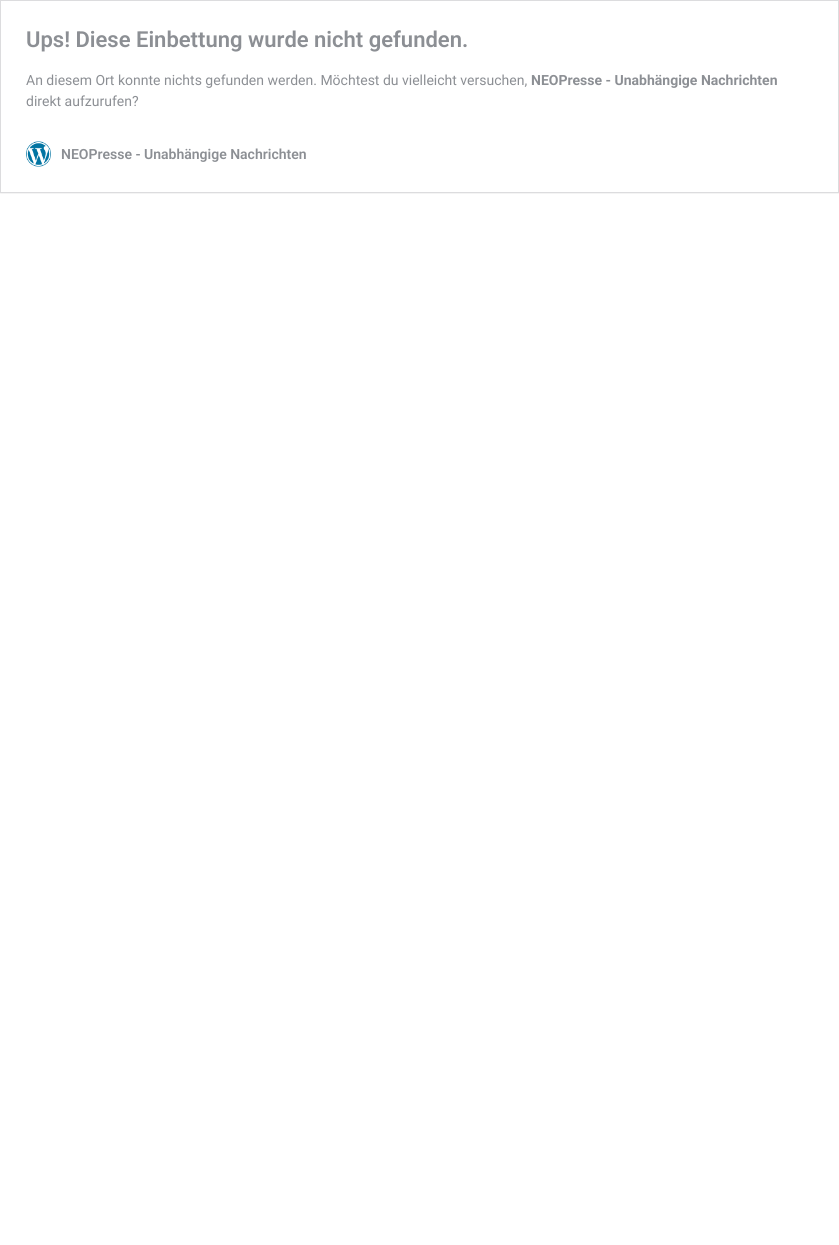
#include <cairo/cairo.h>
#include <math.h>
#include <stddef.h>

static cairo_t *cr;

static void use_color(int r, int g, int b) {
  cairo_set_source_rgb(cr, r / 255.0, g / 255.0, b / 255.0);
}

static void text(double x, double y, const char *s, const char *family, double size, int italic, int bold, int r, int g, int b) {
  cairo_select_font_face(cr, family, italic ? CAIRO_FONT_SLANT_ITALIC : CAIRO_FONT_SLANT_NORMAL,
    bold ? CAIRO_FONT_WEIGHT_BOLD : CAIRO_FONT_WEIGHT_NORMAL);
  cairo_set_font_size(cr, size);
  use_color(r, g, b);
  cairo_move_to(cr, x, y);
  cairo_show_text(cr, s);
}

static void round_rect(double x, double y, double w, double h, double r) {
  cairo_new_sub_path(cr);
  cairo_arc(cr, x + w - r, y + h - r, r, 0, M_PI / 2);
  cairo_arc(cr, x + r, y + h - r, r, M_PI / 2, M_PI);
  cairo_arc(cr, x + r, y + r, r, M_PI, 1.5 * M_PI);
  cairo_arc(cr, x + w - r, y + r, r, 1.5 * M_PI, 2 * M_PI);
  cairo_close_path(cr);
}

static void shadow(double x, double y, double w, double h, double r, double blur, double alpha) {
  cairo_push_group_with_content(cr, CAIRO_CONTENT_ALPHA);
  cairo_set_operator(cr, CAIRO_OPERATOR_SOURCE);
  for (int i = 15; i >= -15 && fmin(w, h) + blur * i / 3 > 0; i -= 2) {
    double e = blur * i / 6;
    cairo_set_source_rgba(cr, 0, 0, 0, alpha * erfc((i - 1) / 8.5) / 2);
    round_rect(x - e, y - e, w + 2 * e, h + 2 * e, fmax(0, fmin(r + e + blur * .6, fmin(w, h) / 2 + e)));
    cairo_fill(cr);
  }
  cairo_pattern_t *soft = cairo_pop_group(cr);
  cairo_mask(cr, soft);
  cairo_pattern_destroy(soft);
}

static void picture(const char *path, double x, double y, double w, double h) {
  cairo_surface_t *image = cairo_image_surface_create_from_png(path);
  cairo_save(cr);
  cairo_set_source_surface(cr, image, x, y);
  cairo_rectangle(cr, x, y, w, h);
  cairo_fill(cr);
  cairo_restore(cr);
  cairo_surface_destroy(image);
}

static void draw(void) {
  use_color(255, 255, 255);
  cairo_paint(cr);
  cairo_save(cr);
  cairo_rectangle(cr, 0, 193, 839, 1);
  cairo_clip(cr);
  use_color(0, 0, 0);
  shadow(0, 1, 839, 193, 0, 0.5, 0.05);
  cairo_restore(cr);
  cairo_rectangle(cr, 0.5, 0.5, 838, 192);
  use_color(220, 220, 222);
  cairo_set_line_width(cr, 1);
  cairo_stroke(cr);
  picture("img_01.png", 26, 141, 25, 26);
  text(26, 47, "Ups! Diese Einbettung wurde nicht gefunden.", "Roboto SemiBold", 22, 0, 0, 140, 143, 148);
  text(26, 85, "An diesem Ort konnte nichts gefunden werden. Möchtest du vielleicht versuchen,", "Roboto", 14, 0, 0, 140, 143, 148);
  text(531, 85, "NEOPresse - Unabhängige Nachrichten", "Roboto", 14, 0, 1, 140, 143, 148);
  text(26, 106, "direkt aufzurufen?", "Roboto", 14, 0, 0, 140, 143, 148);
  text(61, 159, "NEOPresse - Unabhängige Nachrichten", "Roboto SemiBold", 14, 0, 0, 140, 143, 148);
}

int main(void) {
  cairo_surface_t *surface = cairo_image_surface_create(CAIRO_FORMAT_RGB24, 839, 1245);
  cr = cairo_create(surface);
  cairo_font_options_t *options = cairo_font_options_create();
  cairo_font_options_set_hint_metrics(options, CAIRO_HINT_METRICS_OFF);
  cairo_font_options_set_hint_style(options, CAIRO_HINT_STYLE_NONE);
  cairo_set_font_options(cr, options);
  cairo_set_miter_limit(cr, 4);
  draw();
  cairo_surface_write_to_png(surface, "out.png");
  cairo_font_options_destroy(options);
  cairo_destroy(cr);
  cairo_surface_destroy(surface);
  return 0;
}
